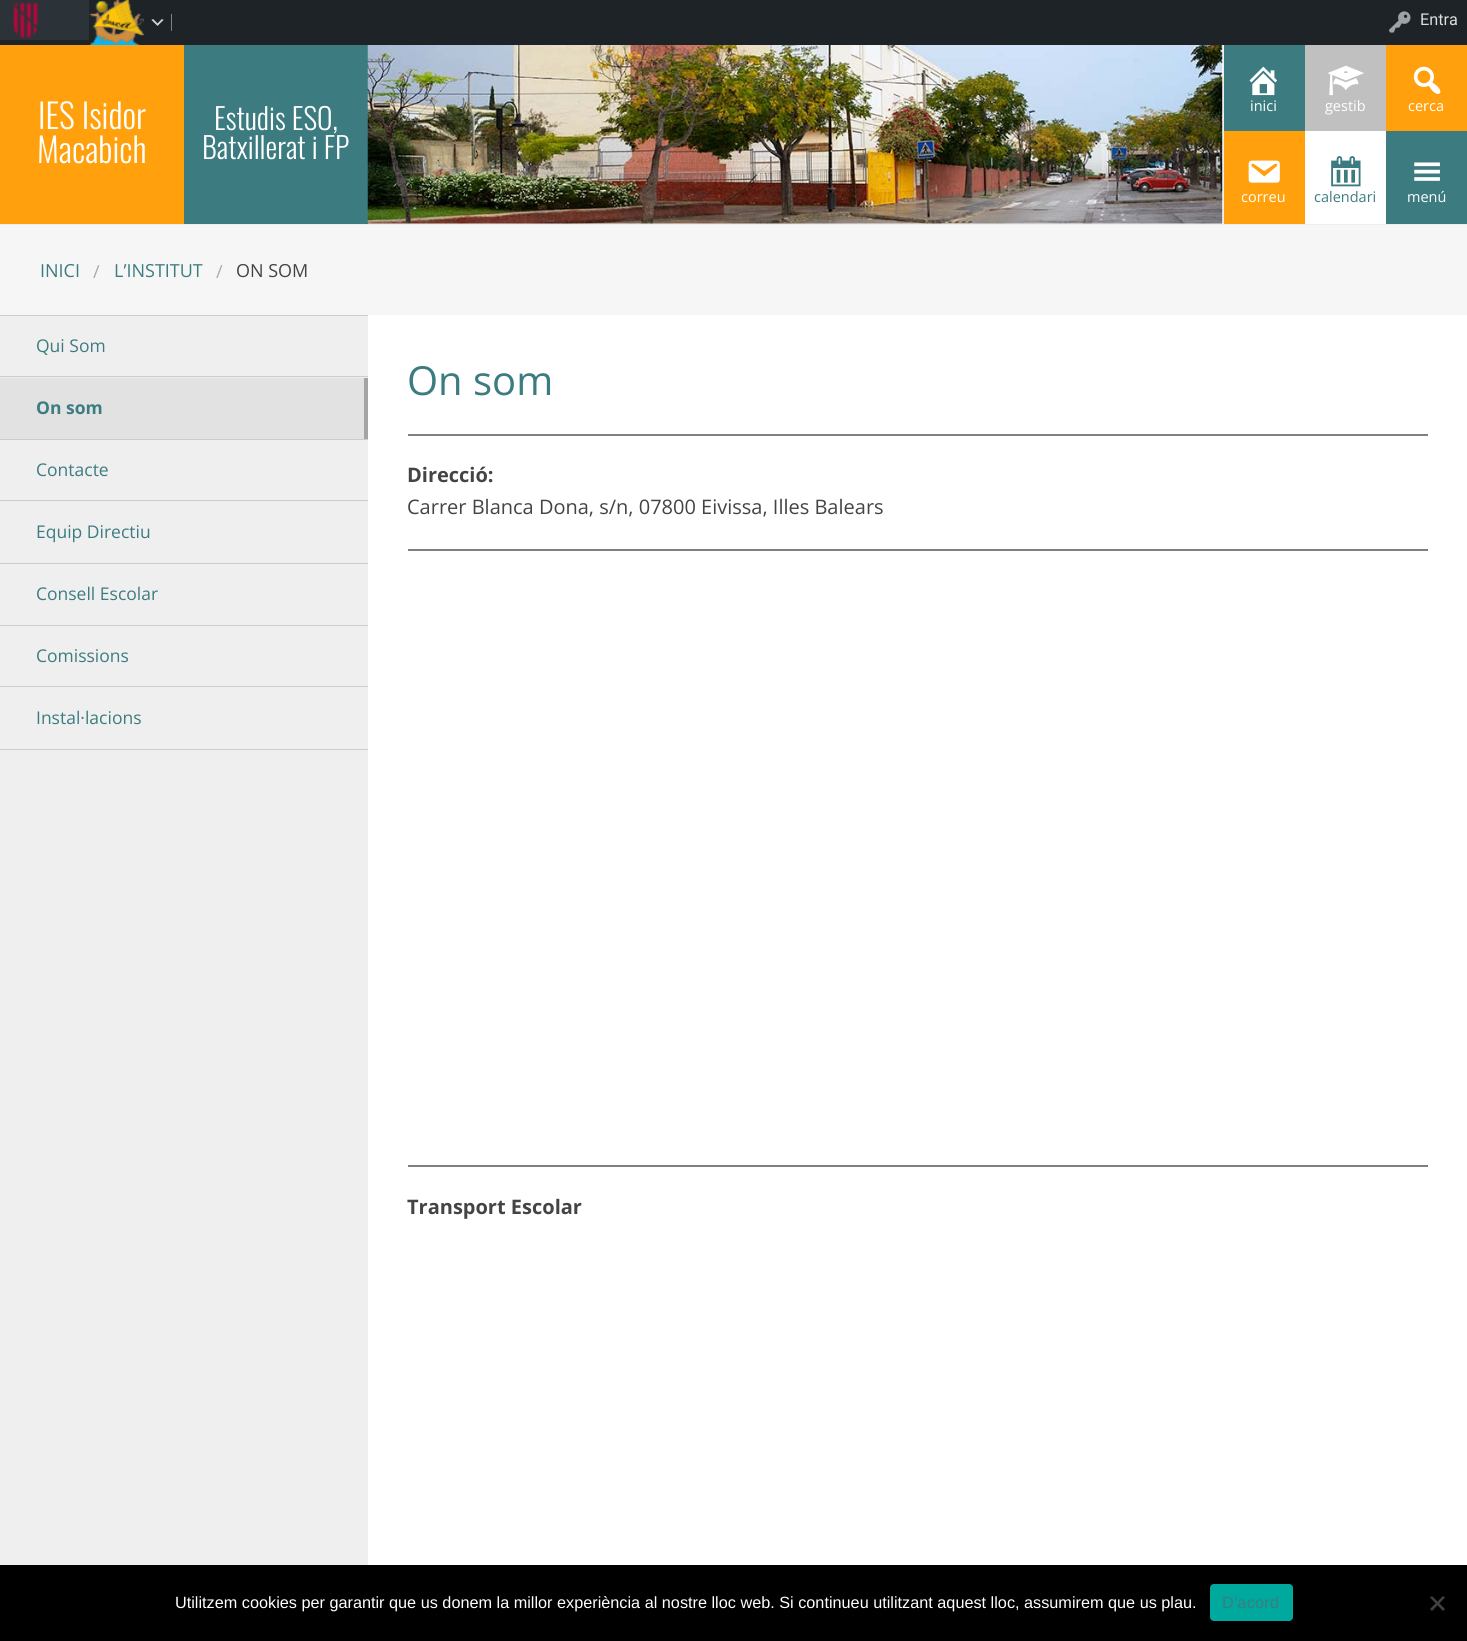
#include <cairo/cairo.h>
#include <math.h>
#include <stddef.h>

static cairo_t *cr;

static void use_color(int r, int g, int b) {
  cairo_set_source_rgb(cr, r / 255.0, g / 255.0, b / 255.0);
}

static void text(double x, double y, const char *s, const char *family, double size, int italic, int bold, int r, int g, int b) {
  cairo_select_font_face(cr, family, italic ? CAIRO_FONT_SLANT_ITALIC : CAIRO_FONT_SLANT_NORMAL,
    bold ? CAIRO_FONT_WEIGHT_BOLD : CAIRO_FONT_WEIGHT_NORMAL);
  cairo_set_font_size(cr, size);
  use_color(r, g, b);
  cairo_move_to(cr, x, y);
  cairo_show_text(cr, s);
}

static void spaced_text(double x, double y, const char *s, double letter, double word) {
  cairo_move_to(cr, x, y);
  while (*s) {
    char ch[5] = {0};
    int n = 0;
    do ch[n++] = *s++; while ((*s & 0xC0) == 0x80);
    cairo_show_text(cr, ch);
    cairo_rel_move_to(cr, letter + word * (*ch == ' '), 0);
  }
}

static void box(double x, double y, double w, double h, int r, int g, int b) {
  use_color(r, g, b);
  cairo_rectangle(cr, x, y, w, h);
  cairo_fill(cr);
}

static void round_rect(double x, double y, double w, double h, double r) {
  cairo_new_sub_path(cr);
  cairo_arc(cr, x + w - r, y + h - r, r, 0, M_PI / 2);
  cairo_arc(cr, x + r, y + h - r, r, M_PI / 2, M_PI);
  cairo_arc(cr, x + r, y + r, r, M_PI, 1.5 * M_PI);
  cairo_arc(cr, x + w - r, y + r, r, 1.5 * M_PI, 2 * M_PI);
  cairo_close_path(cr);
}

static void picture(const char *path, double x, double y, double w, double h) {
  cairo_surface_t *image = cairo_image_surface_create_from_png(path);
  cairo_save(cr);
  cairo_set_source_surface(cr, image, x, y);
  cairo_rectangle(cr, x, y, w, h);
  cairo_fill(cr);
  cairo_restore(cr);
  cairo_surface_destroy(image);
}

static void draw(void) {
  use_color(239, 239, 239);
  cairo_paint(cr);
  box(0, 0, 1467, 45, 29, 35, 39);
  box(0, 0, 89, 40, 44, 51, 56);
  picture("img_01.png", 12, 2, 26, 37);
  picture("img_02.png", 89, 0, 55, 45);
  box(171, 14, 1, 17, 128, 128, 128);
  picture("img_03.png", 151, 19, 13, 7);
  picture("img_04.png", 1388, 11, 23, 22);
  box(0, 45, 184, 179, 255, 160, 12);
  box(184, 45, 184, 179, 60, 124, 128);
  box(368, 45, 855, 179, 255, 255, 255);
  picture("img_05.png", 367, 45, 856, 179);
  box(1224, 45, 81, 86, 60, 124, 128);
  picture("img_06.png", 1249, 66, 29, 30);
  box(1305, 45, 81, 86, 192, 192, 192);
  picture("img_07.png", 1327, 65, 37, 31);
  box(1386, 45, 81, 86, 255, 160, 12);
  picture("img_08.png", 1413, 66, 28, 28);
  box(1224, 131, 81, 93, 255, 160, 12);
  picture("img_09.png", 1248, 160, 32, 23);
  box(1305, 131, 81, 93, 255, 255, 255);
  picture("img_10.png", 1331, 156, 30, 31);
  box(1386, 131, 81, 93, 60, 124, 128);
  picture("img_11.png", 1414, 162, 26, 19);
  box(0, 225, 1467, 90, 246, 246, 246);
  box(0, 315, 368, 1, 204, 204, 204);
  box(0, 376, 368, 1, 204, 204, 204);
  box(0, 378, 364, 61, 226, 226, 226);
  box(0, 439, 368, 1, 204, 204, 204);
  box(364, 378, 4, 61, 164, 164, 164);
  box(0, 500, 368, 1, 204, 204, 204);
  box(0, 563, 368, 1, 204, 204, 204);
  box(0, 625, 368, 1, 204, 204, 204);
  box(0, 686, 368, 1, 204, 204, 204);
  box(0, 749, 368, 1, 204, 204, 204);
  box(368, 315, 1099, 1250, 255, 255, 255);
  box(408, 434, 1020, 2, 128, 128, 128);
  box(408, 549, 1020, 2, 128, 128, 128);
  box(408, 1165, 1020, 2, 128, 128, 128);
  box(0, 1565, 1467, 76, 0, 0, 0);
  use_color(0, 169, 157);
  round_rect(1210, 1584, 83, 37, 4);
  cairo_fill(cr);
  use_color(64, 64, 64);
  cairo_new_path(cr);
  cairo_move_to(cr, 1443, 1596);
  cairo_line_to(cr, 1445, 1597.5);
  cairo_line_to(cr, 1432, 1611);
  cairo_line_to(cr, 1430, 1609);
  cairo_close_path(cr);
  cairo_fill(cr);
  cairo_new_path(cr);
  cairo_move_to(cr, 1430, 1597.5);
  cairo_line_to(cr, 1432, 1596);
  cairo_line_to(cr, 1445, 1609);
  cairo_line_to(cr, 1443, 1611);
  cairo_close_path(cr);
  cairo_fill(cr);
  text(1420, 25, "Entra", "Roboto", 16.25, 0, 0, 221, 221, 221);
  text(38, 129, "IES Isidor", "Oswald Light", 34, 0, 0, 255, 255, 255);
  text(37, 163, "Macabich", "Oswald Light", 34, 0, 0, 255, 255, 255);
  text(214, 130, "Estudis ESO,", "Oswald Light", 29.5, 0, 0, 255, 255, 255);
  text(202, 159, "Batxillerat i FP", "Oswald Light", 29.5, 0, 0, 255, 255, 255);
  text(1250, 111, "inici", "Open Sans", 14.5, 0, 0, 255, 255, 255);
  text(1325, 111, "gestib", "Open Sans", 14.5, 0, 0, 255, 255, 255);
  text(1408, 111, "cerca", "Open Sans", 14.5, 0, 0, 255, 255, 255);
  text(1241, 202, "correu", "Open Sans", 14.5, 0, 0, 255, 255, 255);
  text(1314, 202, "calendari", "Open Sans", 14.5, 0, 0, 60, 124, 128);
  text(1407, 202, "menú", "Open Sans", 14.5, 0, 0, 255, 255, 255);
  text(40, 277, "INICI", "Open Sans", 18, 0, 0, 60, 124, 128);
  text(93, 278, "/", "Open Sans", 18, 0, 0, 170, 170, 170);
  text(114, 277, "L’INSTITUT", "Open Sans", 18, 0, 0, 60, 124, 128);
  text(216, 278, "/", "Open Sans", 18, 0, 0, 170, 170, 170);
  text(236, 277, "ON SOM", "Open Sans", 18, 0, 0, 68, 68, 68);
  text(36, 352, "Qui Som", "Open Sans", 17.5, 0, 0, 60, 124, 128);
  text(36, 414, "On som", "Open Sans", 17.5, 0, 1, 60, 124, 128);
  text(36, 476, "Contacte", "Open Sans", 17.5, 0, 0, 60, 124, 128);
  text(36, 538, "Equip Directiu", "Open Sans", 17.5, 0, 0, 60, 124, 128);
  text(36, 600, "Consell Escolar", "Open Sans", 17.5, 0, 0, 60, 124, 128);
  text(36, 662, "Comissions", "Open Sans", 17.5, 0, 0, 60, 124, 128);
  text(36, 724, "Instal·lacions", "Open Sans", 17.5, 0, 0, 60, 124, 128);
  text(407, 395, "On som", "Open Sans", 40, 0, 0, 60, 124, 128);
  text(407, 482, "Direcció:", "Open Sans", 20, 0, 1, 68, 68, 68);
  text(407, 514, "Carrer Blanca Dona, s/n, 07800 Eivissa, Illes Balears", "Open Sans", 20, 0, 0, 68, 68, 68);
  text(407, 1214, "Transport Escolar", "Open Sans", 20, 0, 1, 68, 68, 68);
  text(175, 1608, "Utilitzem cookies per garantir que us donem la millor experiència al nostre lloc web. Si continueu utilitzant aquest lloc, assumirem que us plau.", "Liberation Sans", 16.25, 0, 0, 255, 255, 255);
  use_color(60, 124, 128);
  spaced_text(1222, 1608, "D'acord", 0.25, 0);
}

int main(void) {
  cairo_surface_t *surface = cairo_image_surface_create(CAIRO_FORMAT_RGB24, 1467, 1641);
  cr = cairo_create(surface);
  cairo_font_options_t *options = cairo_font_options_create();
  cairo_font_options_set_hint_metrics(options, CAIRO_HINT_METRICS_OFF);
  cairo_font_options_set_hint_style(options, CAIRO_HINT_STYLE_NONE);
  cairo_set_font_options(cr, options);
  cairo_set_miter_limit(cr, 4);
  draw();
  cairo_surface_write_to_png(surface, "out.png");
  cairo_font_options_destroy(options);
  cairo_destroy(cr);
  cairo_surface_destroy(surface);
  return 0;
}
